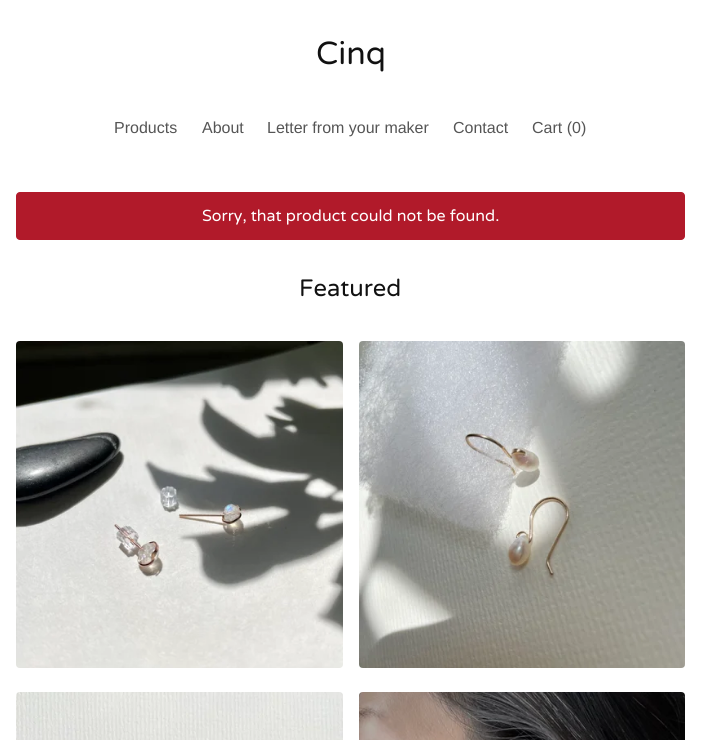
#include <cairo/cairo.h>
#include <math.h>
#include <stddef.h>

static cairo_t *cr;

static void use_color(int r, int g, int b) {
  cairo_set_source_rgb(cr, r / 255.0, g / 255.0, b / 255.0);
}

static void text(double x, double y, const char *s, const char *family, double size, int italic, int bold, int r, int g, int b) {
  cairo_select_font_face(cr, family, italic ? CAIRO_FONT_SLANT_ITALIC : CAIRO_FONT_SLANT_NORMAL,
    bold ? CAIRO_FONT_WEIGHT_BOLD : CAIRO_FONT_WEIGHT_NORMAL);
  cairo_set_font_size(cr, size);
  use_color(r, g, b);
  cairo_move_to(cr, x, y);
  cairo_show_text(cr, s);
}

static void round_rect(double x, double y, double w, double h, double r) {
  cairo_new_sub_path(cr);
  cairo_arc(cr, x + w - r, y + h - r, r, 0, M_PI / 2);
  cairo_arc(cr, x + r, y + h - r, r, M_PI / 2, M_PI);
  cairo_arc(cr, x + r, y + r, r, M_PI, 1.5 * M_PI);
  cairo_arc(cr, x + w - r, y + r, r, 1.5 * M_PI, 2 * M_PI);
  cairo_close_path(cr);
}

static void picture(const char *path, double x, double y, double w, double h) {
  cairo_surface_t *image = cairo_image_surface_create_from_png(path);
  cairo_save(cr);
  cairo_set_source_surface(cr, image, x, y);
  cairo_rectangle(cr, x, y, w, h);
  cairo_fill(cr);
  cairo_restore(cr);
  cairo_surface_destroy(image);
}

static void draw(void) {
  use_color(255, 255, 255);
  cairo_paint(cr);
  use_color(177, 26, 42);
  round_rect(16, 192, 669, 48, 4);
  cairo_fill(cr);
  picture("img_01.png", 16, 341, 327, 327);
  picture("img_02.png", 359, 341, 326, 327);
  picture("img_03.png", 16, 692, 327, 48);
  picture("img_04.png", 359, 692, 326, 48);
  text(316, 64, "Cinq", "Varela Round", 32, 0, 0, 17, 17, 17);
  text(114, 133, "Products", "Liberation Sans", 16, 0, 0, 85, 85, 85);
  text(202, 133, "About", "Liberation Sans", 16, 0, 0, 85, 85, 85);
  text(267, 133, "Letter from your maker", "Liberation Sans", 16, 0, 0, 85, 85, 85);
  text(453, 133, "Contact", "Liberation Sans", 16, 0, 0, 85, 85, 85);
  text(532, 133, "Cart (0)", "Liberation Sans", 16, 0, 0, 85, 85, 85);
  text(202, 221, "Sorry, that product could not be found.", "Varela Round", 16, 0, 0, 255, 255, 255);
  text(299, 296, "Featured", "Varela Round", 23.75, 0, 0, 17, 17, 17);
}

int main(void) {
  cairo_surface_t *surface = cairo_image_surface_create(CAIRO_FORMAT_RGB24, 701, 740);
  cr = cairo_create(surface);
  cairo_font_options_t *options = cairo_font_options_create();
  cairo_font_options_set_hint_metrics(options, CAIRO_HINT_METRICS_OFF);
  cairo_font_options_set_hint_style(options, CAIRO_HINT_STYLE_NONE);
  cairo_set_font_options(cr, options);
  cairo_set_miter_limit(cr, 4);
  draw();
  cairo_surface_write_to_png(surface, "out.png");
  cairo_font_options_destroy(options);
  cairo_destroy(cr);
  cairo_surface_destroy(surface);
  return 0;
}
